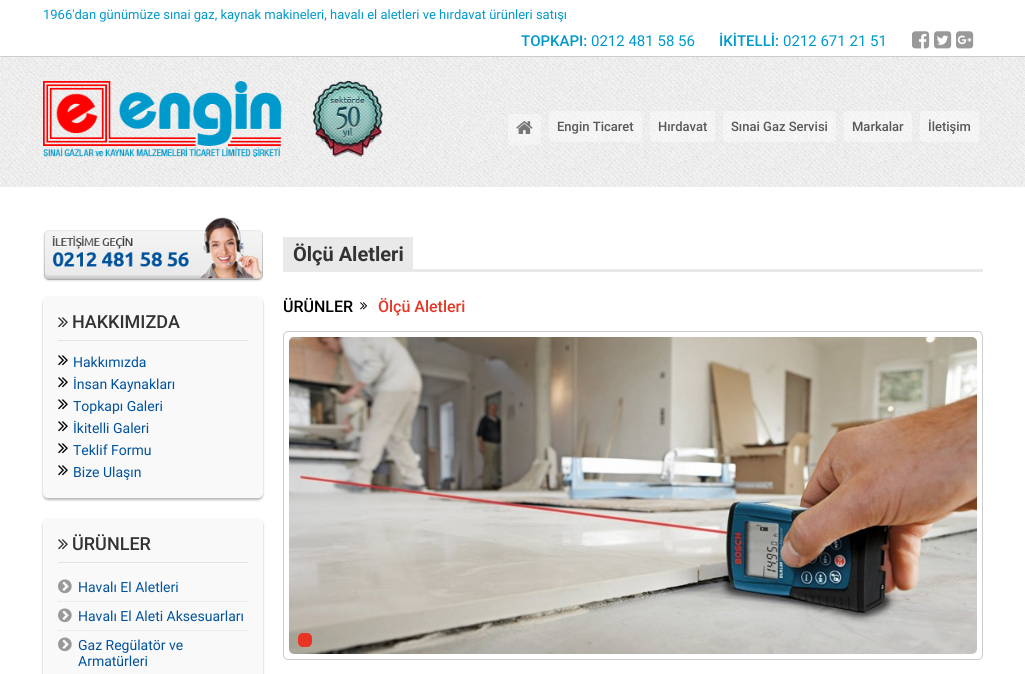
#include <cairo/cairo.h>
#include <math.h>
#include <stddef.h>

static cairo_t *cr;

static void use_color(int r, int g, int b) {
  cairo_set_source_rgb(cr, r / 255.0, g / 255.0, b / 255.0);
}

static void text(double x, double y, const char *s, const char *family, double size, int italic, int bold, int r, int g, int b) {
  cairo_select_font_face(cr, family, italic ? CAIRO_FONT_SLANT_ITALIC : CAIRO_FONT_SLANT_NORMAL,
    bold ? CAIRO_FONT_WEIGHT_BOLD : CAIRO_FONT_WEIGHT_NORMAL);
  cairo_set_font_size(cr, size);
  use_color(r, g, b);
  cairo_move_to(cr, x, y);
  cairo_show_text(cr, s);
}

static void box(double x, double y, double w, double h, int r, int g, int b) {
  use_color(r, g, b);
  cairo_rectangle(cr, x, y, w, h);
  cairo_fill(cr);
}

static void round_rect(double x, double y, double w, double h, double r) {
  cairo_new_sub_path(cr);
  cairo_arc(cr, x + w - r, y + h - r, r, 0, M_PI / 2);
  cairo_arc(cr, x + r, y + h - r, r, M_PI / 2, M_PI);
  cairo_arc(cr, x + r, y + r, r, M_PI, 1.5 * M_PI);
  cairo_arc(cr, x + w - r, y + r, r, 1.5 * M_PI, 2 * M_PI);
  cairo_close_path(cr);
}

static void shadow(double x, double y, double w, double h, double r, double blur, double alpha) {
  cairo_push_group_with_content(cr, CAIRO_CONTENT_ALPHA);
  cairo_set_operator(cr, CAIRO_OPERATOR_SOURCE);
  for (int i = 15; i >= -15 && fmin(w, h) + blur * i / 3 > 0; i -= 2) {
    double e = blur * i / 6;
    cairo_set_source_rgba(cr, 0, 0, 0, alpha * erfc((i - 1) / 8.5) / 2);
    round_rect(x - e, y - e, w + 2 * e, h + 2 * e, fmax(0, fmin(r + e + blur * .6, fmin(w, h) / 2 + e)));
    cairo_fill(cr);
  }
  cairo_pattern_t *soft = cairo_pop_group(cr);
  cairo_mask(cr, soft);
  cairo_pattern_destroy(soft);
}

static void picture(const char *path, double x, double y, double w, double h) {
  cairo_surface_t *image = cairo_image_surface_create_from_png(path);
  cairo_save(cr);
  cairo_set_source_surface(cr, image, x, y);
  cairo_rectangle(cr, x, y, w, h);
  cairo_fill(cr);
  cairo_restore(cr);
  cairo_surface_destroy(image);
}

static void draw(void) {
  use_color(255, 255, 255);
  cairo_paint(cr);
  picture("img_01.png", 0, 56, 1025, 131);
  use_color(204, 204, 204);
  cairo_new_path(cr);
  cairo_move_to(cr, 1, 56);
  cairo_line_to(cr, 1, 57);
  cairo_line_to(cr, 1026, 57);
  cairo_line_to(cr, 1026, 1);
  cairo_line_to(cr, 1025, 1);
  cairo_line_to(cr, 1025, 56);
  cairo_close_path(cr);
  cairo_fill(cr);
  picture("img_02.png", 912, 31, 18, 18);
  picture("img_03.png", 934, 31, 18, 18);
  picture("img_04.png", 956, 31, 18, 18);
  picture("img_05.png", 43, 81, 340, 76);
  cairo_set_source_rgba(cr, 1, 1, 1, 0.4);
  round_rect(508, 114, 33, 31, 3);
  cairo_fill(cr);
  picture("img_06.png", 516, 121, 17, 13);
  round_rect(549, 111, 93, 31, 3);
  cairo_fill(cr);
  round_rect(650, 111, 65, 31, 3);
  cairo_fill(cr);
  round_rect(723, 111, 113, 31, 3);
  cairo_fill(cr);
  round_rect(844, 111, 68, 31, 3);
  cairo_fill(cr);
  round_rect(920, 111, 59, 31, 3);
  cairo_fill(cr);
  box(283, 237, 130, 32, 233, 233, 233);
  box(283, 269, 700, 3, 233, 233, 233);
  picture("img_07.png", 360, 302, 8, 8);
  round_rect(283.5, 331.5, 699, 328, 4.5);
  use_color(204, 204, 204);
  cairo_set_line_width(cr, 1);
  cairo_stroke(cr);
  picture("img_08.png", 289, 337, 688, 317);
  use_color(233, 51, 36);
  round_rect(298, 633, 14, 14, 5);
  cairo_fill(cr);
  picture("img_09.png", 43, 217, 220, 65);
  use_color(187, 187, 187);
  shadow(43, 298, 220, 202, 5, 1, 1);
  use_color(249, 249, 249);
  round_rect(43, 296, 220, 202, 5);
  cairo_fill(cr);
  box(58, 340, 190, 1, 228, 228, 228);
  picture("img_10.png", 58, 317, 10, 11);
  picture("img_11.png", 58, 355, 10, 11);
  picture("img_11.png", 58, 377, 10, 11);
  picture("img_11.png", 58, 399, 10, 11);
  picture("img_11.png", 58, 421, 10, 11);
  picture("img_11.png", 58, 443, 10, 11);
  picture("img_11.png", 58, 465, 10, 11);
  use_color(187, 187, 187);
  shadow(43, 520, 220, 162, 5, 1, 1);
  use_color(249, 249, 249);
  round_rect(43, 518, 220, 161, 5);
  cairo_fill(cr);
  box(58, 562, 190, 1, 228, 228, 228);
  picture("img_10.png", 58, 539, 10, 11);
  cairo_new_path(cr);
  cairo_move_to(cr, 58, 601.5);
  cairo_line_to(cr, 248, 601.5);
  use_color(221, 221, 221);
  cairo_set_dash(cr, (double[]){1, 1}, 2, 0);
  cairo_stroke(cr);
  picture("img_12.png", 58, 579, 14, 15);
  cairo_new_path(cr);
  cairo_move_to(cr, 58, 630.5);
  cairo_line_to(cr, 248, 630.5);
  cairo_stroke(cr);
  picture("img_12.png", 58, 608, 14, 15);
  picture("img_12.png", 58, 637, 14, 15);
  text(43, 19, "1966'dan günümüze sınai gaz, kaynak makineleri, havalı el aletleri ve hırdavat ürünleri satışı", "Roboto", 13, 0, 0, 0, 153, 204);
  text(521, 46, "TOPKAPI:", "Roboto Medium", 15, 0, 0, 0, 153, 204);
  text(591, 46, "0212 481 58 56", "Roboto", 15, 0, 0, 0, 153, 204);
  text(719, 46, "İKİTELLİ:", "Roboto Medium", 15, 0, 0, 0, 153, 204);
  text(783, 46, "0212 671 21 51", "Roboto", 15, 0, 0, 0, 153, 204);
  text(557, 131, "Engin Ticaret", "Roboto Medium", 13, 0, 0, 88, 88, 88);
  text(658, 131, "Hırdavat", "Roboto Medium", 13, 0, 0, 88, 88, 88);
  text(731, 131, "Sınai Gaz Servisi", "Roboto Medium", 13, 0, 0, 88, 88, 88);
  text(852, 131, "Markalar", "Roboto Medium", 13, 0, 0, 88, 88, 88);
  text(928, 131, "İletişim", "Roboto Medium", 13, 0, 0, 88, 88, 88);
  text(293, 261, "Ölçü Aletleri", "Roboto", 20, 0, 1, 51, 51, 51);
  text(283, 312, "ÜRÜNLER", "Roboto Medium", 16, 0, 0, 0, 0, 0);
  text(378, 312, "Ölçü Aletleri", "Roboto Medium", 16, 0, 0, 230, 54, 37);
  text(72, 328, "HAKKIMIZDA", "Roboto Medium", 18, 0, 0, 51, 51, 51);
  text(73, 367, "Hakkımızda", "Roboto", 14, 0, 0, 0, 82, 156);
  text(73, 389, "İnsan Kaynakları", "Roboto", 14, 0, 0, 0, 82, 156);
  text(73, 411, "Topkapı Galeri", "Roboto", 14, 0, 0, 0, 82, 156);
  text(73, 433, "İkitelli Galeri", "Roboto", 14, 0, 0, 0, 82, 156);
  text(73, 455, "Teklif Formu", "Roboto", 14, 0, 0, 0, 82, 156);
  text(73, 477, "Bize Ulaşın", "Roboto", 14, 0, 0, 0, 82, 156);
  text(72, 550, "ÜRÜNLER", "Roboto Medium", 18, 0, 0, 51, 51, 51);
  text(78, 592, "Havalı El Aletleri", "Roboto", 14, 0, 0, 0, 82, 156);
  text(78, 621, "Havalı El Aleti Aksesuarları", "Roboto", 14, 0, 0, 0, 82, 156);
  text(78, 650, "Gaz Regülatör ve", "Roboto", 14, 0, 0, 0, 82, 156);
  text(78, 666, "Armatürleri", "Roboto", 14, 0, 0, 0, 82, 156);
}

int main(void) {
  cairo_surface_t *surface = cairo_image_surface_create(CAIRO_FORMAT_RGB24, 1025, 674);
  cr = cairo_create(surface);
  cairo_font_options_t *options = cairo_font_options_create();
  cairo_font_options_set_hint_metrics(options, CAIRO_HINT_METRICS_OFF);
  cairo_font_options_set_hint_style(options, CAIRO_HINT_STYLE_NONE);
  cairo_set_font_options(cr, options);
  cairo_set_miter_limit(cr, 4);
  draw();
  cairo_surface_write_to_png(surface, "out.png");
  cairo_font_options_destroy(options);
  cairo_destroy(cr);
  cairo_surface_destroy(surface);
  return 0;
}
